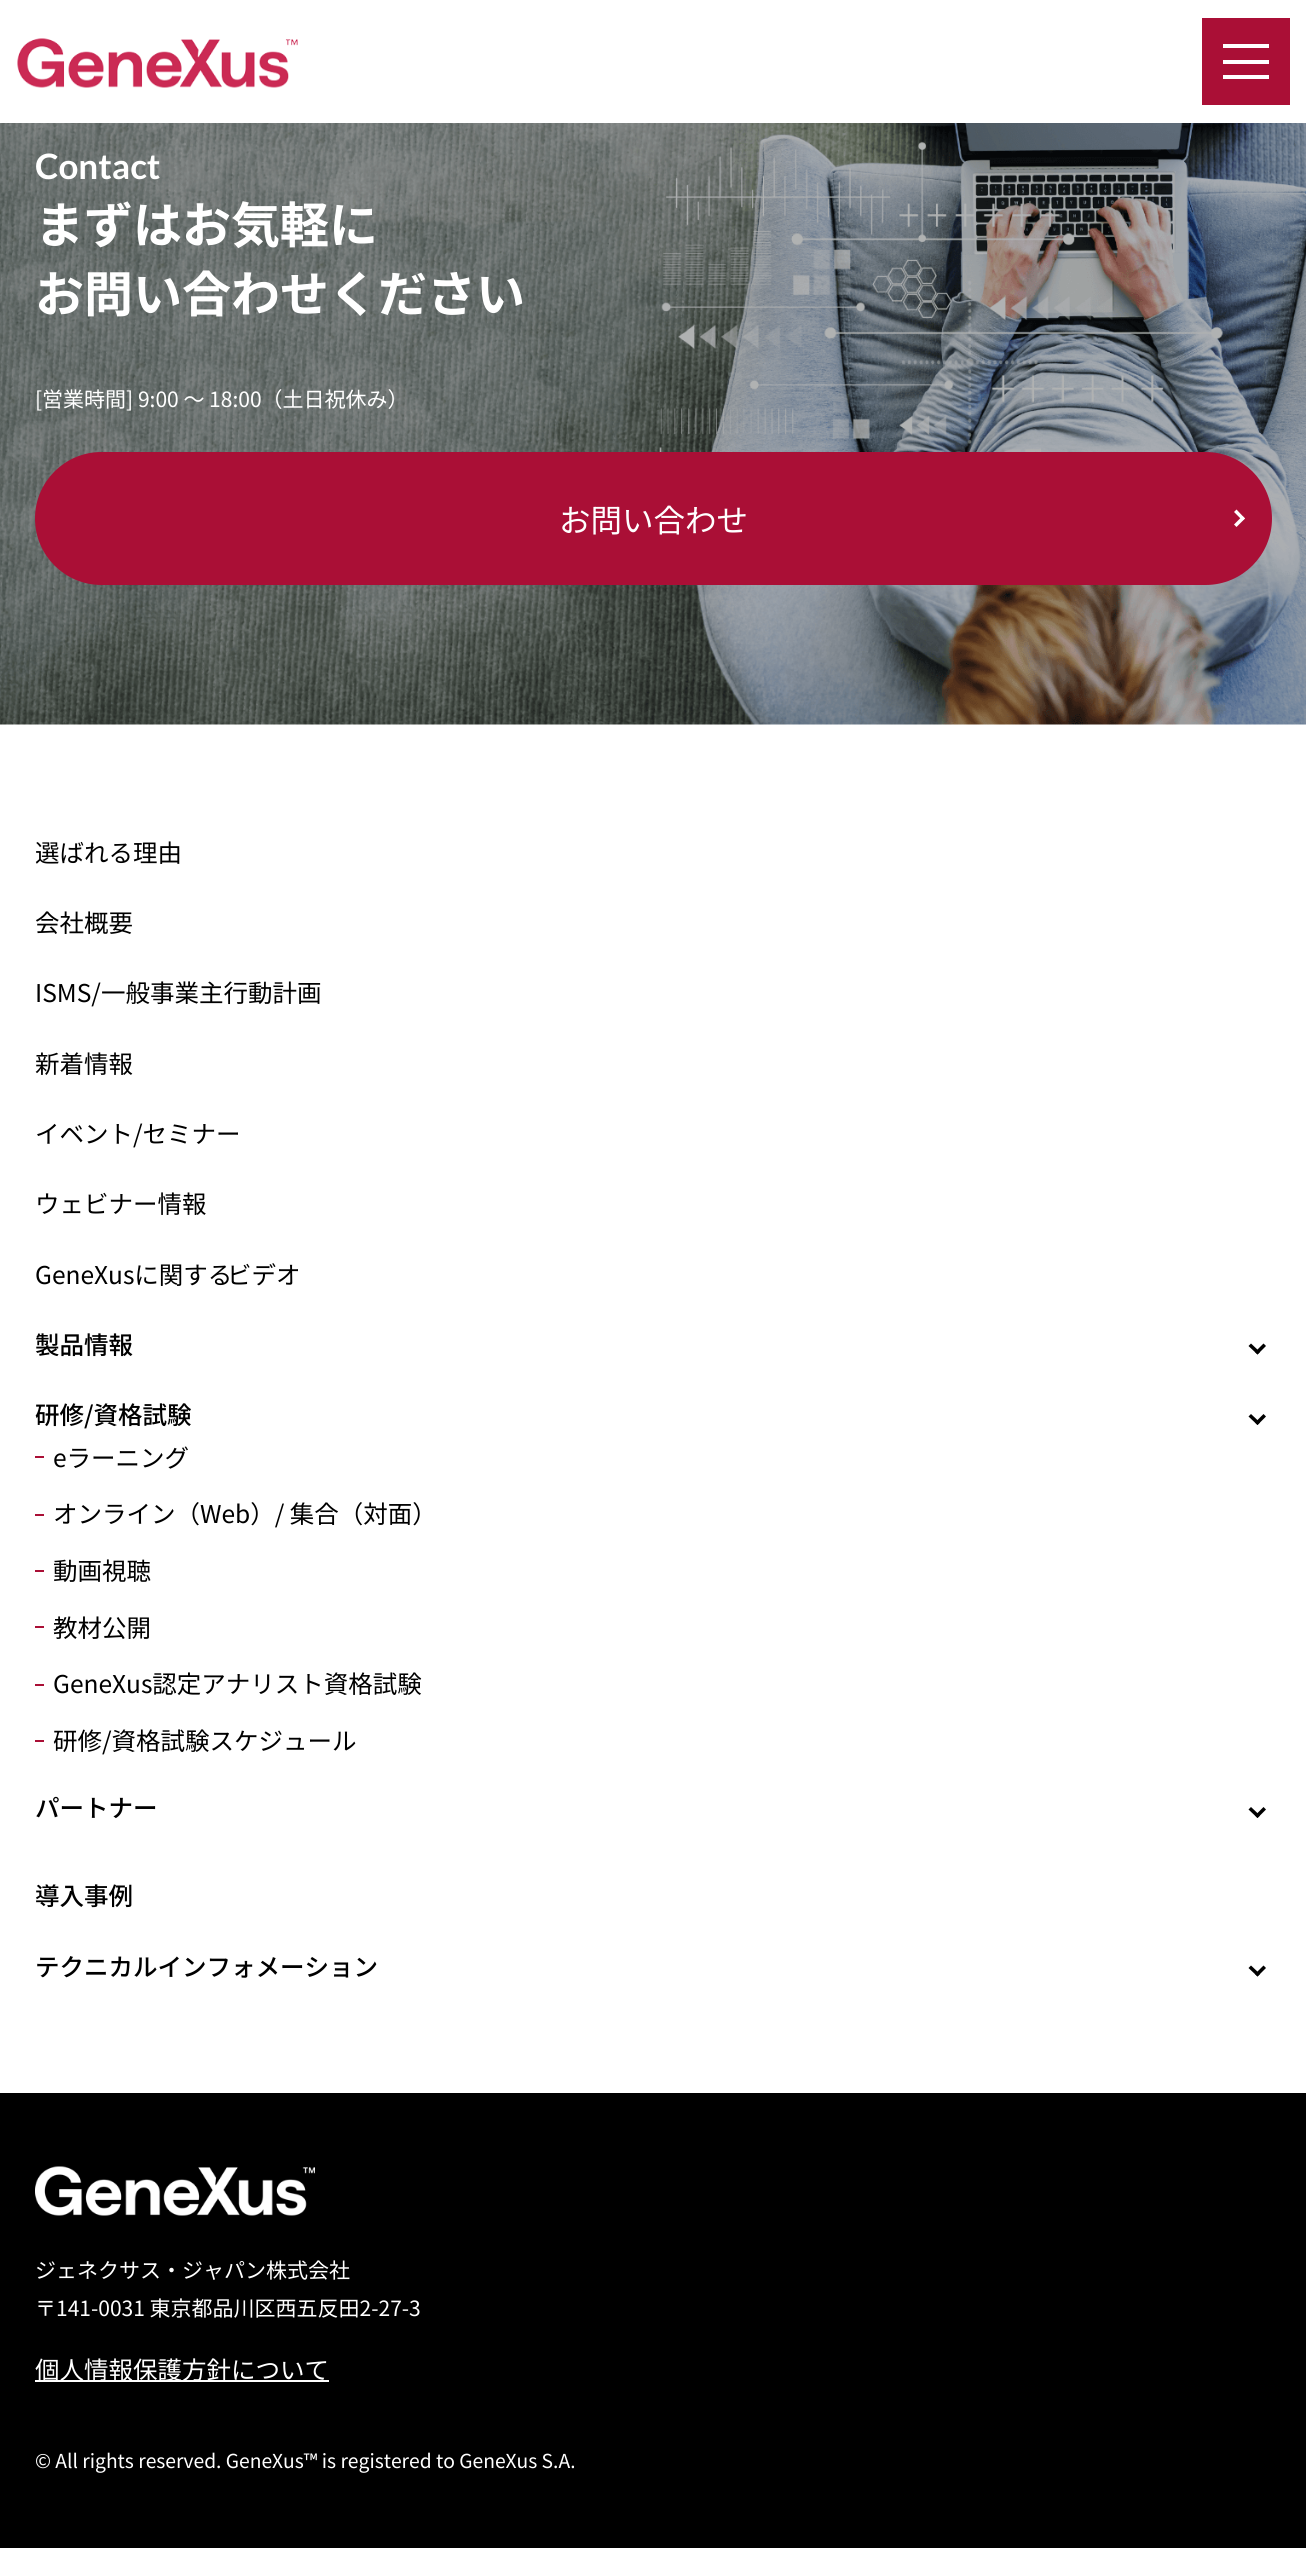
#include <cairo/cairo.h>
#include <math.h>
#include <stddef.h>

static cairo_t *cr;

static void use_color(int r, int g, int b) {
  cairo_set_source_rgb(cr, r / 255.0, g / 255.0, b / 255.0);
}

static void text(double x, double y, const char *s, const char *family, double size, int italic, int bold, int r, int g, int b) {
  cairo_select_font_face(cr, family, italic ? CAIRO_FONT_SLANT_ITALIC : CAIRO_FONT_SLANT_NORMAL,
    bold ? CAIRO_FONT_WEIGHT_BOLD : CAIRO_FONT_WEIGHT_NORMAL);
  cairo_set_font_size(cr, size);
  use_color(r, g, b);
  cairo_move_to(cr, x, y);
  cairo_show_text(cr, s);
}

static void box(double x, double y, double w, double h, int r, int g, int b) {
  use_color(r, g, b);
  cairo_rectangle(cr, x, y, w, h);
  cairo_fill(cr);
}

static void round_rect(double x, double y, double w, double h, double r) {
  cairo_new_sub_path(cr);
  cairo_arc(cr, x + w - r, y + h - r, r, 0, M_PI / 2);
  cairo_arc(cr, x + r, y + h - r, r, M_PI / 2, M_PI);
  cairo_arc(cr, x + r, y + r, r, M_PI, 1.5 * M_PI);
  cairo_arc(cr, x + w - r, y + r, r, 1.5 * M_PI, 2 * M_PI);
  cairo_close_path(cr);
}

static void picture(const char *path, double x, double y, double w, double h) {
  cairo_surface_t *image = cairo_image_surface_create_from_png(path);
  cairo_save(cr);
  cairo_set_source_surface(cr, image, x, y);
  cairo_rectangle(cr, x, y, w, h);
  cairo_fill(cr);
  cairo_restore(cr);
  cairo_surface_destroy(image);
}

static void draw(void) {
  use_color(255, 255, 255);
  cairo_paint(cr);
  picture("img_01.png", 17, 38, 281, 50);
  box(1202, 18, 88, 87, 170, 15, 54);
  box(1223, 44, 46, 4, 255, 255, 255);
  box(1223, 60, 46, 4, 255, 255, 255);
  box(1223, 75, 46, 4, 255, 255, 255);
  picture("img_02.png", 0, 123, 1306, 602);
  use_color(170, 15, 54);
  round_rect(37, 454, 1233, 129, 64.5);
  cairo_fill_preserve(cr);
  cairo_set_line_width(cr, 4);
  cairo_stroke(cr);
  use_color(255, 255, 255);
  cairo_new_path(cr);
  cairo_move_to(cr, 1236.5, 509.5);
  cairo_line_to(cr, 1245, 518.5);
  cairo_line_to(cr, 1242.5, 520.5);
  cairo_line_to(cr, 1234, 512);
  cairo_close_path(cr);
  cairo_fill(cr);
  cairo_new_path(cr);
  cairo_move_to(cr, 1242.5, 516);
  cairo_line_to(cr, 1245, 518.5);
  cairo_line_to(cr, 1236.5, 527);
  cairo_line_to(cr, 1234, 524.5);
  cairo_close_path(cr);
  cairo_fill(cr);
  use_color(0, 0, 0);
  cairo_new_path(cr);
  cairo_move_to(cr, 1266, 1346);
  cairo_line_to(cr, 1257.5, 1354.5);
  cairo_line_to(cr, 1255, 1352);
  cairo_line_to(cr, 1263.5, 1343.5);
  cairo_close_path(cr);
  cairo_fill(cr);
  cairo_new_path(cr);
  cairo_move_to(cr, 1260, 1352);
  cairo_line_to(cr, 1257.5, 1354.5);
  cairo_line_to(cr, 1248.5, 1346);
  cairo_line_to(cr, 1251, 1343.5);
  cairo_close_path(cr);
  cairo_fill(cr);
  cairo_new_path(cr);
  cairo_move_to(cr, 1266, 1416.5);
  cairo_line_to(cr, 1257.5, 1425);
  cairo_line_to(cr, 1255, 1422.5);
  cairo_line_to(cr, 1263.5, 1414);
  cairo_close_path(cr);
  cairo_fill(cr);
  cairo_new_path(cr);
  cairo_move_to(cr, 1260, 1422.5);
  cairo_line_to(cr, 1257.5, 1425);
  cairo_line_to(cr, 1248.5, 1416.5);
  cairo_line_to(cr, 1251, 1414);
  cairo_close_path(cr);
  cairo_fill(cr);
  box(35, 1456, 9, 2, 170, 15, 54);
  box(35, 1514, 9, 2, 170, 15, 54);
  box(35, 1570, 9, 2, 170, 15, 54);
  box(35, 1626, 9, 2, 170, 15, 54);
  box(35, 1684, 9, 2, 170, 15, 54);
  box(35, 1740, 9, 2, 170, 15, 54);
  use_color(0, 0, 0);
  cairo_new_path(cr);
  cairo_move_to(cr, 1266, 1809.5);
  cairo_line_to(cr, 1257.5, 1818);
  cairo_line_to(cr, 1255, 1815.5);
  cairo_line_to(cr, 1263.5, 1807);
  cairo_close_path(cr);
  cairo_fill(cr);
  cairo_new_path(cr);
  cairo_move_to(cr, 1260, 1815.5);
  cairo_line_to(cr, 1257.5, 1818);
  cairo_line_to(cr, 1248.5, 1809.5);
  cairo_line_to(cr, 1251, 1807);
  cairo_close_path(cr);
  cairo_fill(cr);
  cairo_new_path(cr);
  cairo_move_to(cr, 1266, 1968);
  cairo_line_to(cr, 1257.5, 1976.5);
  cairo_line_to(cr, 1255, 1974);
  cairo_line_to(cr, 1263.5, 1965.5);
  cairo_close_path(cr);
  cairo_fill(cr);
  cairo_new_path(cr);
  cairo_move_to(cr, 1260, 1974);
  cairo_line_to(cr, 1257.5, 1976.5);
  cairo_line_to(cr, 1248.5, 1968);
  cairo_line_to(cr, 1251, 1965.5);
  cairo_close_path(cr);
  cairo_fill(cr);
  box(0, 2093, 1306, 455, 0, 0, 0);
  picture("img_03.png", 35, 2166, 280, 50);
  box(35, 2380, 294, 2, 255, 255, 255);
  text(35, 179, "Contact", "Lato", 35, 0, 1, 255, 255, 255);
  text(35, 243, "まずはお気軽に", "Noto Sans JP", 49, 0, 1, 255, 255, 255);
  text(35, 312, "お問い合わせください", "Noto Sans JP", 49, 0, 1, 255, 255, 255);
  text(35, 407, "[営業時間] 9:00 〜 18:00（土日祝休み）", "Noto Sans JP", 21, 0, 0, 255, 255, 255);
  text(559, 532, "お問い合わせ", "Noto Sans JP", 31.5, 0, 0, 255, 255, 255);
  text(35, 862, "選ばれる理由", "Noto Sans JP", 24.5, 0, 0, 0, 0, 0);
  text(35, 932, "会社概要", "Noto Sans JP", 24.5, 0, 0, 0, 0, 0);
  text(35, 1002, "ISMS/一般事業主行動計画", "Noto Sans JP", 24.5, 0, 0, 0, 0, 0);
  text(35, 1073, "新着情報", "Noto Sans JP", 24.5, 0, 0, 0, 0, 0);
  text(35, 1143, "イベント/セミナー", "Noto Sans JP", 24.5, 0, 0, 0, 0, 0);
  text(35, 1213, "ウェビナー情報", "Noto Sans JP", 24.5, 0, 0, 0, 0, 0);
  text(35, 1284, "GeneXusに関する", "Noto Sans JP", 24.5, 0, 0, 0, 0, 0);
  text(227, 1284, "ビデオ", "Noto Sans JP", 24.5, 0, 0, 0, 0, 0);
  text(35, 1354, "製品情報", "Noto Sans JP Medium", 24.5, 0, 0, 0, 0, 0);
  text(35, 1424, "研修/資格試験", "Noto Sans JP Medium", 24.5, 0, 0, 0, 0, 0);
  text(53, 1467, "eラーニング", "Noto Sans JP", 24.5, 0, 0, 0, 0, 0);
  text(53, 1523, "オンライン（Web）/ 集合（対面）", "Noto Sans JP", 24.5, 0, 0, 0, 0, 0);
  text(53, 1580, "動画視聴", "Noto Sans JP", 24.5, 0, 0, 0, 0, 0);
  text(53, 1637, "教材公開", "Noto Sans JP", 24.5, 0, 0, 0, 0, 0);
  text(53, 1693, "GeneXus認定アナリスト資格試験", "Noto Sans JP", 24.5, 0, 0, 0, 0, 0);
  text(53, 1750, "研修/資格試験スケジュール", "Noto Sans JP", 24.5, 0, 0, 0, 0, 0);
  text(35, 1817, "パートナー", "Noto Sans JP Medium", 24.5, 0, 0, 0, 0, 0);
  text(35, 1905, "導入事例", "Noto Sans JP Medium", 24.5, 0, 0, 0, 0, 0);
  text(35, 1976, "テクニカルインフォメーション", "Noto Sans JP Medium", 24.5, 0, 0, 0, 0, 0);
  text(35, 2278, "ジェネクサス・ジャパン株式会社", "Noto Sans JP", 21, 0, 0, 255, 255, 255);
  text(35, 2316, "〒141-0031 東京都品川区西五反田2-27-3", "Noto Sans JP", 21, 0, 0, 255, 255, 255);
  text(35, 2379, "個人情報保護方針について", "Noto Sans JP", 24.5, 0, 0, 255, 255, 255);
  text(35, 2468, "© All rights reserved. GeneXus™ is registered to GeneXus S.A.", "Noto Sans JP", 19.25, 0, 0, 255, 255, 255);
}

int main(void) {
  cairo_surface_t *surface = cairo_image_surface_create(CAIRO_FORMAT_RGB24, 1306, 2556);
  cr = cairo_create(surface);
  cairo_font_options_t *options = cairo_font_options_create();
  cairo_font_options_set_hint_metrics(options, CAIRO_HINT_METRICS_OFF);
  cairo_font_options_set_hint_style(options, CAIRO_HINT_STYLE_NONE);
  cairo_set_font_options(cr, options);
  cairo_set_miter_limit(cr, 4);
  draw();
  cairo_surface_write_to_png(surface, "out.png");
  cairo_font_options_destroy(options);
  cairo_destroy(cr);
  cairo_surface_destroy(surface);
  return 0;
}
